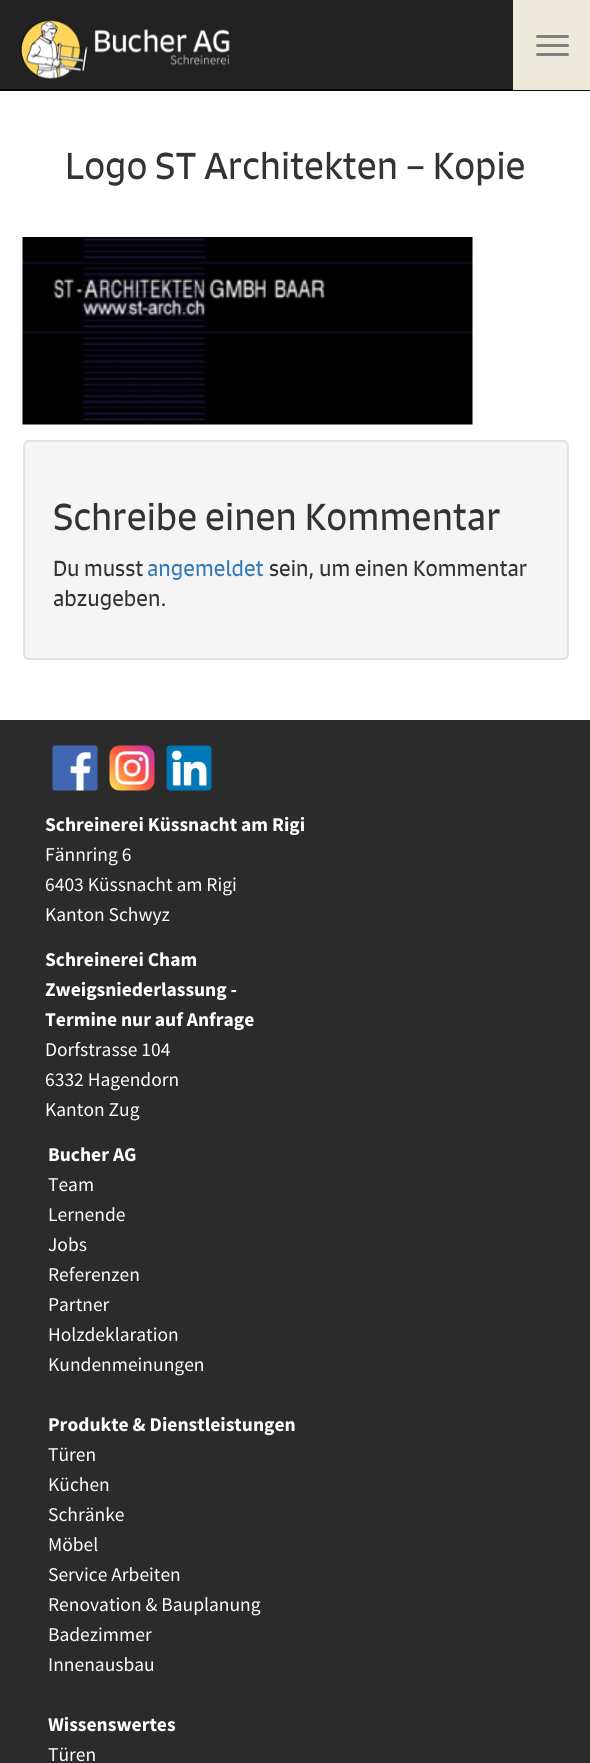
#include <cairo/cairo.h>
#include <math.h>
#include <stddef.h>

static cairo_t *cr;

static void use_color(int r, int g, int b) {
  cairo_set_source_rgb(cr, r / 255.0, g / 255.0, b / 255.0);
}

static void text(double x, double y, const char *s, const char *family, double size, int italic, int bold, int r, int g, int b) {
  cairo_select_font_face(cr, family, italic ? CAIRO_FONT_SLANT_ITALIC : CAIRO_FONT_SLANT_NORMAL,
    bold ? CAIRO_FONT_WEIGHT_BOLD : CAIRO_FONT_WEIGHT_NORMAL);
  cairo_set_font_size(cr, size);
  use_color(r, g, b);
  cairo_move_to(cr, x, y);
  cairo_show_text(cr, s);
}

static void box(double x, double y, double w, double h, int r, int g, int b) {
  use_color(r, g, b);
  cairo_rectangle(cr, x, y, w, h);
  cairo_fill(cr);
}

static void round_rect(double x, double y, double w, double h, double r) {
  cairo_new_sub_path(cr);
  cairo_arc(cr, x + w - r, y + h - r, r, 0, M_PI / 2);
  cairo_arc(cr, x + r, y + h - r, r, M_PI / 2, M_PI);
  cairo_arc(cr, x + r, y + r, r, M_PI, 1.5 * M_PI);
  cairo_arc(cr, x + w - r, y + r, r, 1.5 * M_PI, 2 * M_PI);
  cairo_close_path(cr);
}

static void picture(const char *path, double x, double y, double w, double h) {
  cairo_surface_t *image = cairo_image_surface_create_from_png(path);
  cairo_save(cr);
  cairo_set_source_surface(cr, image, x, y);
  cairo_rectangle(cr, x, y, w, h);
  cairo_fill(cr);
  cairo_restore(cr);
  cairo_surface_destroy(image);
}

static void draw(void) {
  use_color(255, 255, 255);
  cairo_paint(cr);
  box(0, 0, 513, 89, 34, 34, 34);
  box(0, 89, 590, 2, 8, 8, 8);
  picture("img_01.png", 20, 20, 210, 60);
  box(513, 0, 77, 90, 237, 233, 219);
  use_color(128, 128, 128);
  round_rect(536, 35, 33, 3, 1.5);
  cairo_fill(cr);
  round_rect(536, 44, 33, 3, 1.5);
  cairo_fill(cr);
  round_rect(536, 53, 33, 3, 1.5);
  cairo_fill(cr);
  picture("img_02.png", 22, 237, 451, 188);
  use_color(245, 245, 245);
  round_rect(23, 440, 546, 220, 6);
  cairo_fill(cr);
  use_color(233, 233, 233);
  cairo_new_path(cr);
  cairo_move_to(cr, 28, 442);
  cairo_line_to(cr, 562, 442);
  cairo_curve_to(cr, 565, 442, 567, 445, 567, 447);
  cairo_curve_to(cr, 567, 444, 565, 441, 562, 441);
  cairo_line_to(cr, 29, 441);
  cairo_curve_to(cr, 26, 441, 24, 444, 24, 447);
  cairo_curve_to(cr, 24, 445, 26, 442, 28, 442);
  cairo_close_path(cr);
  cairo_fill(cr);
  round_rect(24, 441, 544, 218, 5);
  use_color(227, 227, 227);
  cairo_stroke(cr);
  box(0, 720, 590, 1043, 43, 43, 43);
  picture("img_03.png", 52, 745, 46, 46);
  picture("img_04.png", 109, 745, 46, 46);
  picture("img_05.png", 166, 745, 46, 46);
  text(65, 179, "Logo ST Architekten – Kopie", "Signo", 36, 0, 0, 51, 51, 51);
  text(53, 530, "Schreibe einen Kommentar", "Signo", 36, 0, 0, 51, 51, 51);
  text(53, 576, "Du musst", "Signo", 21, 0, 0, 51, 51, 51);
  text(147, 576, "angemeldet", "Signo", 21, 0, 0, 51, 122, 183);
  text(269, 576, "sein, um einen Kommentar", "Signo", 21, 0, 0, 51, 51, 51);
  text(53, 606, "abzugeben.", "Signo", 21, 0, 0, 51, 51, 51);
  text(45, 831, "Schreinerei Küssnacht am Rigi", "Source Sans Pro", 19.5, 0, 1, 255, 255, 255);
  text(45, 861, "Fännring 6", "Source Sans Pro", 19.5, 0, 0, 255, 255, 255);
  text(45, 891, "6403 Küssnacht am Rigi", "Source Sans Pro", 19.5, 0, 0, 255, 255, 255);
  text(45, 921, "Kanton Schwyz", "Source Sans Pro", 19.5, 0, 0, 255, 255, 255);
  text(45, 966, "Schreinerei Cham", "Source Sans Pro", 19.5, 0, 1, 255, 255, 255);
  text(45, 996, "Zweigsniederlassung -", "Source Sans Pro", 19.5, 0, 1, 255, 255, 255);
  text(45, 1026, "Termine nur auf Anfrage", "Source Sans Pro", 19.5, 0, 1, 255, 255, 255);
  text(45, 1056, "Dorfstrasse 104", "Source Sans Pro", 19.5, 0, 0, 255, 255, 255);
  text(45, 1086, "6332 Hagendorn", "Source Sans Pro", 19.5, 0, 0, 255, 255, 255);
  text(45, 1116, "Kanton Zug", "Source Sans Pro", 19.5, 0, 0, 255, 255, 255);
  text(48, 1161, "Bucher AG", "Source Sans Pro", 19.5, 0, 1, 255, 255, 255);
  text(48, 1191, "Team", "Source Sans Pro", 19.5, 0, 0, 255, 255, 255);
  text(48, 1221, "Lernende", "Source Sans Pro", 19.5, 0, 0, 255, 255, 255);
  text(48, 1251, "Jobs", "Source Sans Pro", 19.5, 0, 0, 255, 255, 255);
  text(48, 1281, "Referenzen", "Source Sans Pro", 19.5, 0, 0, 255, 255, 255);
  text(48, 1311, "Partner", "Source Sans Pro", 19.5, 0, 0, 255, 255, 255);
  text(48, 1341, "Holzdeklaration", "Source Sans Pro", 19.5, 0, 0, 255, 255, 255);
  text(48, 1371, "Kundenmeinungen", "Source Sans Pro", 19.5, 0, 0, 255, 255, 255);
  text(48, 1431, "Produkte & Dienstleistungen", "Source Sans Pro", 19.5, 0, 1, 255, 255, 255);
  text(48, 1461, "Türen", "Source Sans Pro", 19.5, 0, 0, 255, 255, 255);
  text(48, 1491, "Küchen", "Source Sans Pro", 19.5, 0, 0, 255, 255, 255);
  text(48, 1521, "Schränke", "Source Sans Pro", 19.5, 0, 0, 255, 255, 255);
  text(48, 1551, "Möbel", "Source Sans Pro", 19.5, 0, 0, 255, 255, 255);
  text(48, 1581, "Service Arbeiten", "Source Sans Pro", 19.5, 0, 0, 255, 255, 255);
  text(48, 1611, "Renovation & Bauplanung", "Source Sans Pro", 19.5, 0, 0, 255, 255, 255);
  text(48, 1641, "Badezimmer", "Source Sans Pro", 19.5, 0, 0, 255, 255, 255);
  text(48, 1671, "Innenausbau", "Source Sans Pro", 19.5, 0, 0, 255, 255, 255);
  text(48, 1731, "Wissenswertes", "Source Sans Pro", 19.5, 0, 1, 255, 255, 255);
  text(48, 1761, "Türen", "Source Sans Pro", 19.5, 0, 0, 255, 255, 255);
}

int main(void) {
  cairo_surface_t *surface = cairo_image_surface_create(CAIRO_FORMAT_RGB24, 590, 1763);
  cr = cairo_create(surface);
  cairo_font_options_t *options = cairo_font_options_create();
  cairo_font_options_set_hint_metrics(options, CAIRO_HINT_METRICS_OFF);
  cairo_font_options_set_hint_style(options, CAIRO_HINT_STYLE_NONE);
  cairo_set_font_options(cr, options);
  cairo_set_miter_limit(cr, 4);
  draw();
  cairo_surface_write_to_png(surface, "out.png");
  cairo_font_options_destroy(options);
  cairo_destroy(cr);
  cairo_surface_destroy(surface);
  return 0;
}
